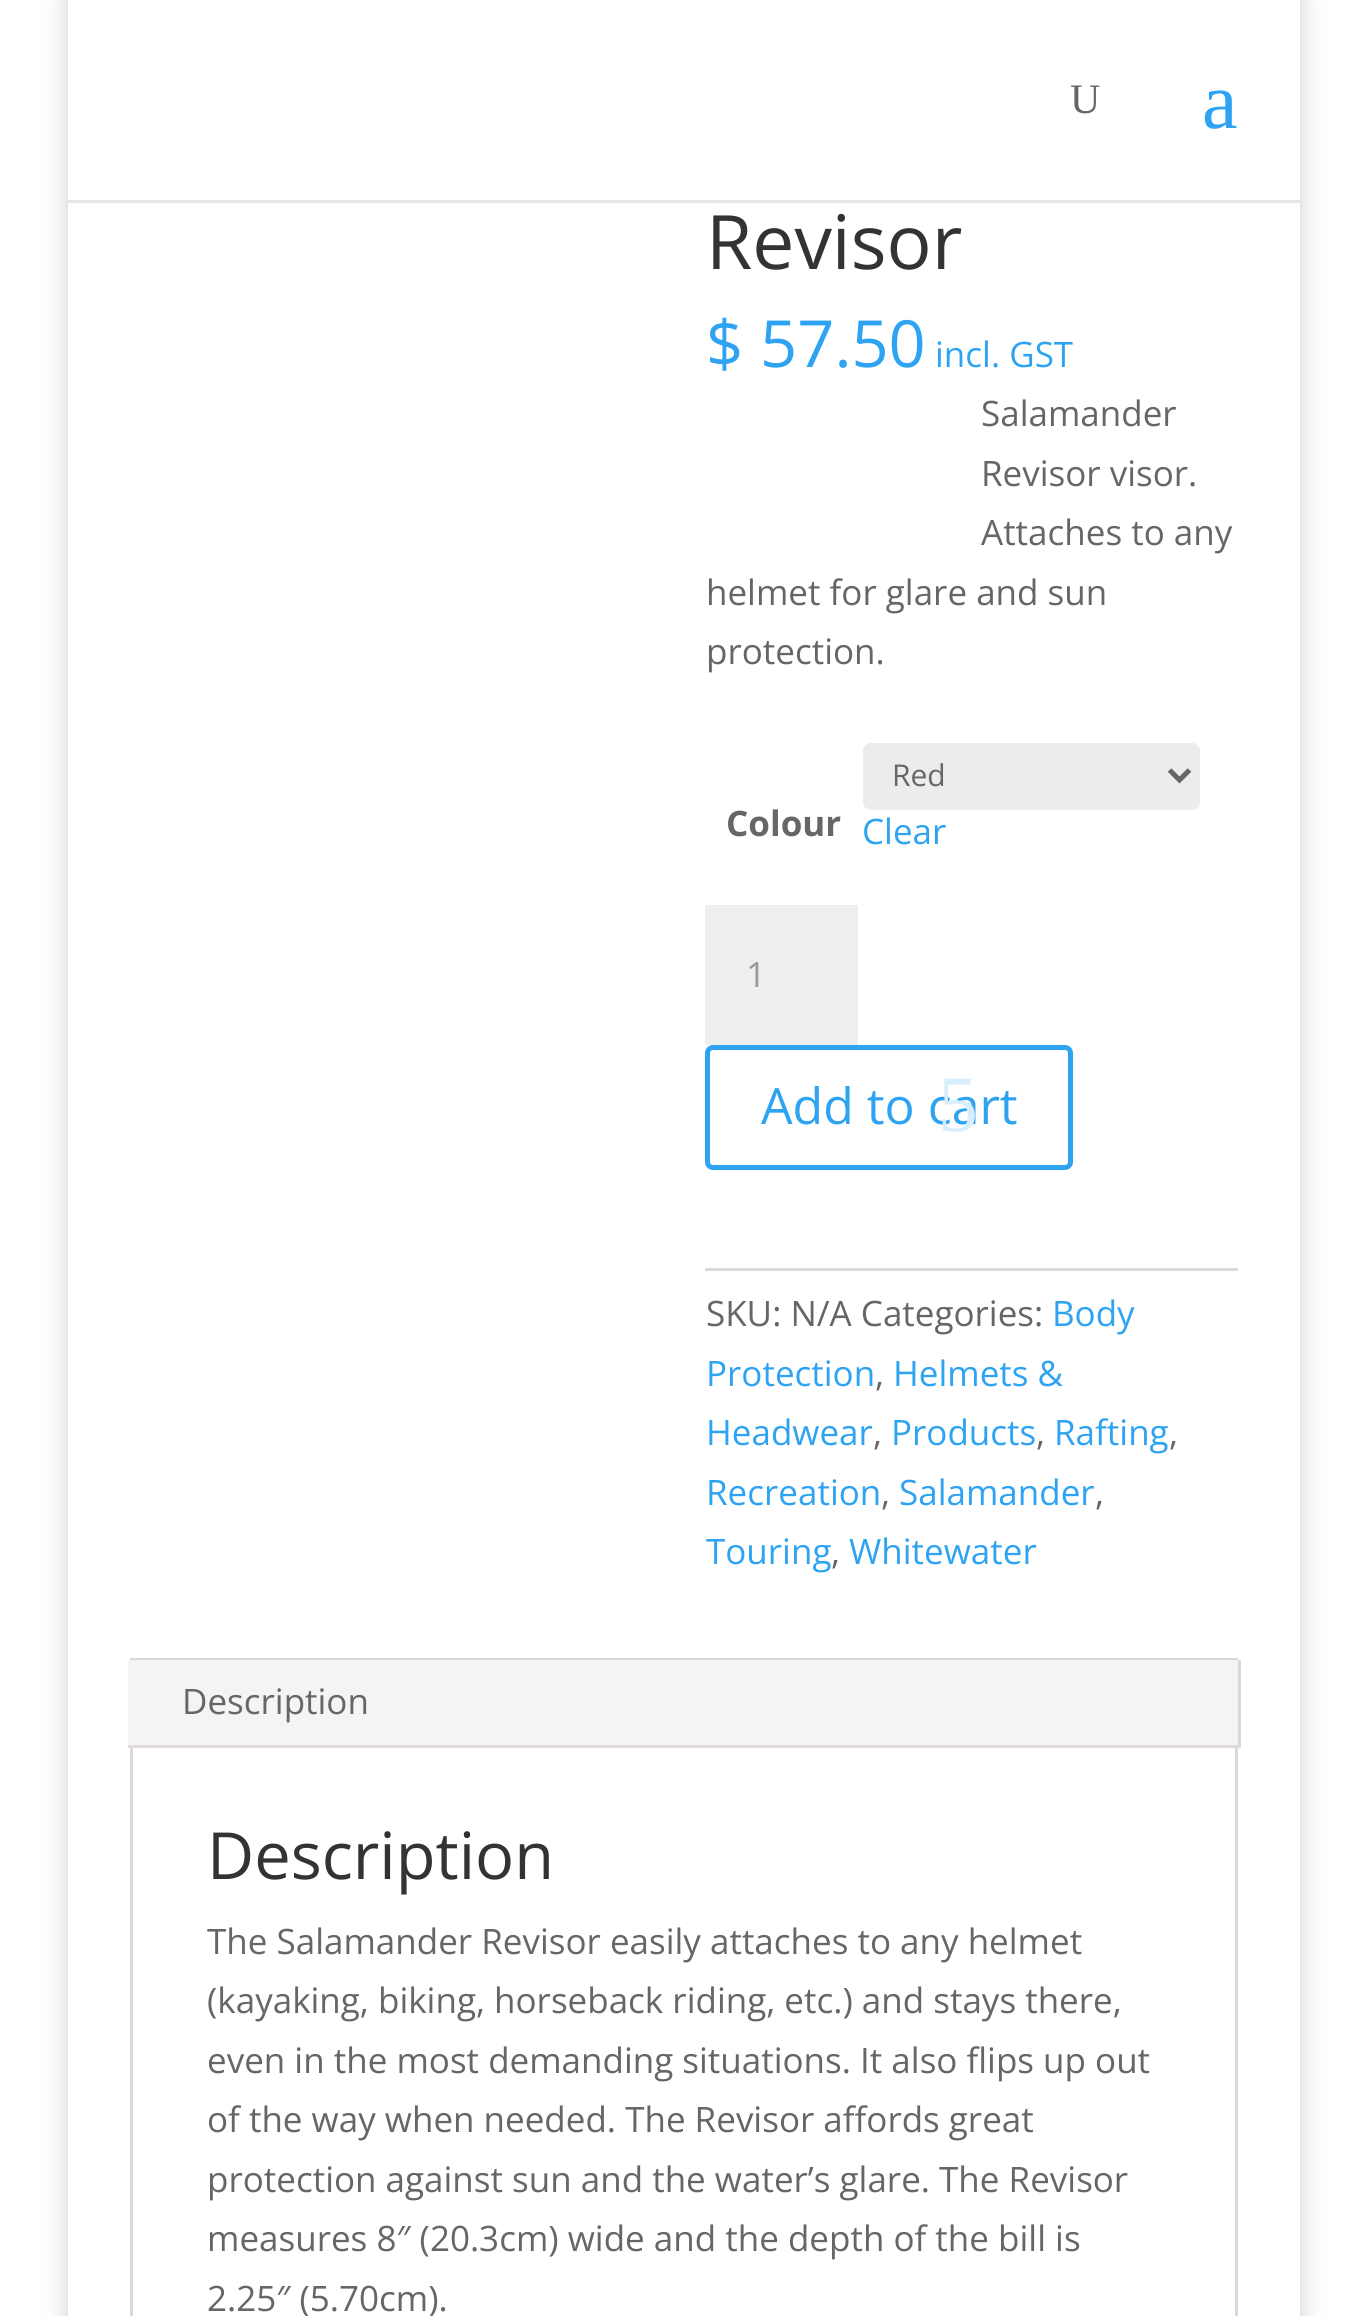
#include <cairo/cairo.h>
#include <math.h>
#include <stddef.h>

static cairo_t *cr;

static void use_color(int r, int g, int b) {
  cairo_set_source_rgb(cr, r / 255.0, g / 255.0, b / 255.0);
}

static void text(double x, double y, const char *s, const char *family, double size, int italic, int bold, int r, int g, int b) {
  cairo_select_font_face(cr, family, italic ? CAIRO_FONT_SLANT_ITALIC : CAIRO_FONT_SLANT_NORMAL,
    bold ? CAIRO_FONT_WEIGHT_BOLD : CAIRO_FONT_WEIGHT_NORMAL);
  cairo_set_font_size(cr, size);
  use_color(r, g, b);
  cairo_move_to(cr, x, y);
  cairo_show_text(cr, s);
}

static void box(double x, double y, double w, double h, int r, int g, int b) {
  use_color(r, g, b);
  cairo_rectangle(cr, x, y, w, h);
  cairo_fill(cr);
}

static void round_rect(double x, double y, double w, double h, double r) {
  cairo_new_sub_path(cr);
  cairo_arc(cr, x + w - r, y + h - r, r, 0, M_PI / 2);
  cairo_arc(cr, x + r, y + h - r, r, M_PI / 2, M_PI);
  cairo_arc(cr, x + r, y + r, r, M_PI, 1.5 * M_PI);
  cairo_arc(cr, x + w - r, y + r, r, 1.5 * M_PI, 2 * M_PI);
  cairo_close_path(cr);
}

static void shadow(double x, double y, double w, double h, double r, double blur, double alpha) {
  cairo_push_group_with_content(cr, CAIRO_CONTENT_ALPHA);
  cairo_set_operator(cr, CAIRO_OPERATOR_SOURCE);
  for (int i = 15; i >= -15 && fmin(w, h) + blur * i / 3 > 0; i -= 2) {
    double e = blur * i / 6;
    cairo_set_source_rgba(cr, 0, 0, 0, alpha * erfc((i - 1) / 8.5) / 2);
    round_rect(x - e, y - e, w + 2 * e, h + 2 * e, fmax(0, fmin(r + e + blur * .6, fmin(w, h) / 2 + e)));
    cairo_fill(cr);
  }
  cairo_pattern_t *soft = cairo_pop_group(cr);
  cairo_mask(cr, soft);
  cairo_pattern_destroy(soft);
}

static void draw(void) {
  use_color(255, 255, 255);
  cairo_paint(cr);
  cairo_save(cr);
  cairo_set_fill_rule(cr, CAIRO_FILL_RULE_EVEN_ODD);
  cairo_new_path(cr);
  cairo_move_to(cr, 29, 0);
  cairo_line_to(cr, 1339, 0);
  cairo_line_to(cr, 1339, 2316);
  cairo_line_to(cr, 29, 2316);
  cairo_close_path(cr);
  cairo_move_to(cr, 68, 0);
  cairo_line_to(cr, 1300, 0);
  cairo_line_to(cr, 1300, 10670);
  cairo_line_to(cr, 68, 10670);
  cairo_close_path(cr);
  cairo_clip(cr);
  use_color(0, 0, 0);
  shadow(68, 0, 1232, 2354, 0, 12.5, 0.2);
  cairo_restore(cr);
  box(68, 200, 1232, 3, 230, 230, 230);
  use_color(236, 236, 236);
  round_rect(863, 743, 337, 67, 8);
  cairo_fill(cr);
  cairo_new_path(cr);
  cairo_move_to(cr, 1169.5, 770);
  cairo_line_to(cr, 1179.5, 780);
  cairo_line_to(cr, 1189.5, 770);
  use_color(102, 102, 102);
  cairo_set_line_width(cr, 5);
  cairo_stroke(cr);
  box(705, 905, 153, 140, 238, 238, 238);
  round_rect(707.5, 1047.5, 363, 120, 5.5);
  use_color(46, 163, 242);
  cairo_stroke(cr);
  box(705, 1268, 533, 3, 218, 218, 218);
  cairo_rectangle(cr, 131.5, 1659.5, 1105, 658);
  use_color(217, 217, 217);
  cairo_set_line_width(cr, 3);
  cairo_stroke(cr);
  box(128, 1660, 1110, 85, 244, 244, 244);
  box(1238, 1660, 3, 88, 217, 217, 217);
  box(128, 1745, 1112, 3, 224, 218, 223);
  text(1070, 113, "U", "Liberation Serif", 42, 0, 0, 102, 102, 102);
  text(1202, 128, "a", "Liberation Serif", 80, 0, 0, 46, 163, 242);
  text(706, 269, "Revisor", "Open Sans", 75, 0, 0, 51, 51, 51);
  text(706, 367, "$ 57.50", "Open Sans", 65, 0, 0, 46, 163, 242);
  text(935, 367, "incl. GST", "Open Sans", 35, 0, 0, 46, 163, 242);
  text(981, 426, "Salamander", "Open Sans", 35, 0, 0, 102, 102, 102);
  text(981, 486, "Revisor visor.", "Open Sans", 35, 0, 0, 102, 102, 102);
  text(981, 545, "Attaches to any", "Open Sans", 35, 0, 0, 102, 102, 102);
  text(706, 605, "helmet for glare and sun", "Open Sans", 35, 0, 0, 102, 102, 102);
  text(706, 664, "protection.", "Open Sans", 35, 0, 0, 102, 102, 102);
  text(726, 836, "Colour", "Open Sans", 35, 0, 1, 102, 102, 102);
  text(892, 786, "Red", "Open Sans", 30, 0, 0, 102, 102, 102);
  text(862, 844, "Clear", "Open Sans", 35, 0, 0, 46, 163, 242);
  text(746, 987, "1", "Open Sans", 35, 0, 0, 153, 153, 153);
  text(761, 1124, "Add to cart", "Open Sans", 50, 0, 0, 46, 163, 242);
  text(938, 1131, "5", "Liberation Serif", 80, 0, 0, 217, 238, 253);
  text(706, 1326, "SKU: N/A Categories:", "Open Sans", 35, 0, 0, 102, 102, 102);
  text(1052, 1326, "Body", "Open Sans", 35, 0, 0, 46, 163, 242);
  text(706, 1386, "Protection", "Open Sans", 35, 0, 0, 46, 163, 242);
  text(875, 1386, ",", "Open Sans", 35, 0, 0, 102, 102, 102);
  text(893, 1386, "Helmets &", "Open Sans", 35, 0, 0, 46, 163, 242);
  text(706, 1445, "Headwear", "Open Sans", 35, 0, 0, 46, 163, 242);
  text(873, 1445, ",", "Open Sans", 35, 0, 0, 102, 102, 102);
  text(891, 1445, "Products", "Open Sans", 35, 0, 0, 46, 163, 242);
  text(1036, 1445, ",", "Open Sans", 35, 0, 0, 102, 102, 102);
  text(1054, 1445, "Rafting", "Open Sans", 35, 0, 0, 46, 163, 242);
  text(1169, 1445, ",", "Open Sans", 35, 0, 0, 102, 102, 102);
  text(706, 1505, "Recreation", "Open Sans", 35, 0, 0, 46, 163, 242);
  text(881, 1505, ",", "Open Sans", 35, 0, 0, 102, 102, 102);
  text(899, 1505, "Salamander", "Open Sans", 35, 0, 0, 46, 163, 242);
  text(1095, 1505, ",", "Open Sans", 35, 0, 0, 102, 102, 102);
  text(706, 1564, "Touring", "Open Sans", 35, 0, 0, 46, 163, 242);
  text(831, 1564, ",", "Open Sans", 35, 0, 0, 102, 102, 102);
  text(849, 1564, "Whitewater", "Open Sans", 35, 0, 0, 46, 163, 242);
  text(182, 1714, "Description", "Open Sans", 35, 0, 0, 102, 102, 102);
  text(207, 1879, "Description", "Open Sans", 65, 0, 0, 51, 51, 51);
  text(207, 1954, "The Salamander Revisor easily attaches to any helmet", "Open Sans", 35, 0, 0, 102, 102, 102);
  text(207, 2013, "(kayaking, biking, horseback riding, etc.) and stays there,", "Open Sans", 35, 0, 0, 102, 102, 102);
  text(207, 2073, "even in the most demanding situations. It also flips up out", "Open Sans", 35, 0, 0, 102, 102, 102);
  text(207, 2132, "of the way when needed. The Revisor affords great", "Open Sans", 35, 0, 0, 102, 102, 102);
  text(207, 2192, "protection against sun and the water’s glare. The Revisor", "Open Sans", 35, 0, 0, 102, 102, 102);
  text(207, 2251, "measures 8″ (20.3cm) wide and the depth of the bill is", "Open Sans", 35, 0, 0, 102, 102, 102);
  text(207, 2311, "2.25″ (5.70cm).", "Open Sans", 35, 0, 0, 102, 102, 102);
}

int main(void) {
  cairo_surface_t *surface = cairo_image_surface_create(CAIRO_FORMAT_RGB24, 1366, 2316);
  cr = cairo_create(surface);
  cairo_font_options_t *options = cairo_font_options_create();
  cairo_font_options_set_hint_metrics(options, CAIRO_HINT_METRICS_OFF);
  cairo_font_options_set_hint_style(options, CAIRO_HINT_STYLE_NONE);
  cairo_set_font_options(cr, options);
  cairo_set_miter_limit(cr, 4);
  draw();
  cairo_surface_write_to_png(surface, "out.png");
  cairo_font_options_destroy(options);
  cairo_destroy(cr);
  cairo_surface_destroy(surface);
  return 0;
}
